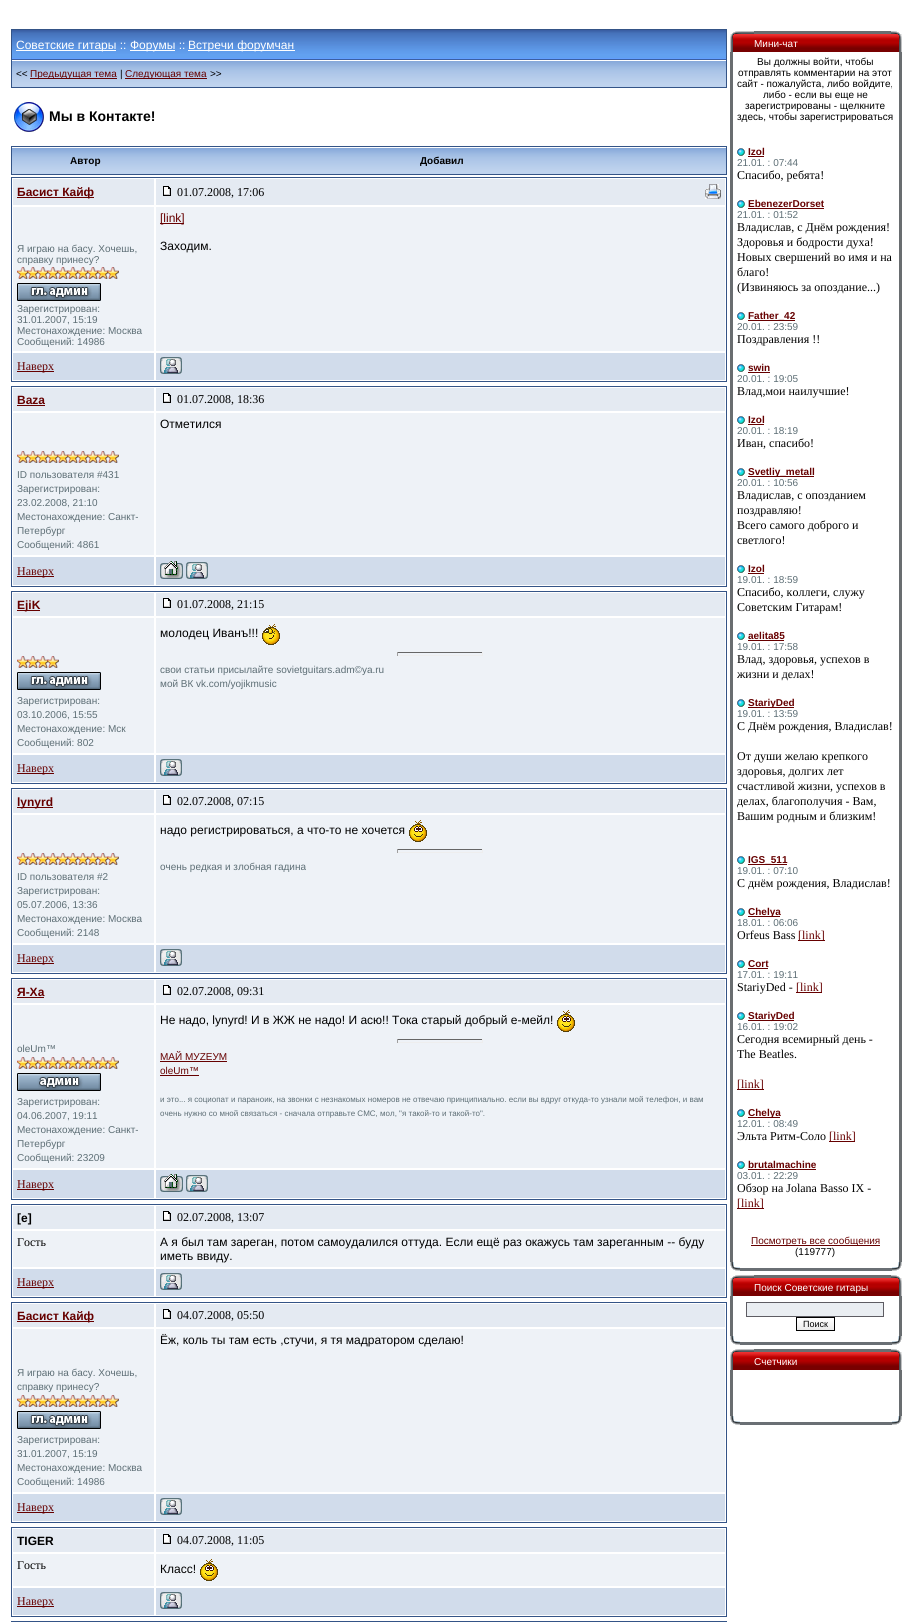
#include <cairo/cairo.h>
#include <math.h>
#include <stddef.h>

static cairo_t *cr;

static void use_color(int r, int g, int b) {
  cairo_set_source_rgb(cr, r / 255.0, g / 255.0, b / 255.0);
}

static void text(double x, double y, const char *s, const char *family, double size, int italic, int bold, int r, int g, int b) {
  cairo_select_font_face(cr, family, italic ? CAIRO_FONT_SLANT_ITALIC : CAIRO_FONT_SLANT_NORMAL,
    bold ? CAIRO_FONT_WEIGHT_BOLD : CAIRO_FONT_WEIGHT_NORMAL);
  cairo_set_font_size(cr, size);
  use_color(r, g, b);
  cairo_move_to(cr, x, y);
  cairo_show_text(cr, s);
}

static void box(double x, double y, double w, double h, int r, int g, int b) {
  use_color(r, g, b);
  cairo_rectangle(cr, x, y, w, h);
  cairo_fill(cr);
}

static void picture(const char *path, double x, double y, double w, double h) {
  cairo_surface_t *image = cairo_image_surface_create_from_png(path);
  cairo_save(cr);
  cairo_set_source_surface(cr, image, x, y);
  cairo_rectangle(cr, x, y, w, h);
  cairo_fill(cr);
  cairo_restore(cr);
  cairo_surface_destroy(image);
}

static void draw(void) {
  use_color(255, 255, 255);
  cairo_paint(cr);
  cairo_rectangle(cr, 11.5, 29.5, 715, 58);
  use_color(52, 84, 135);
  cairo_set_line_width(cr, 1);
  cairo_stroke(cr);
  picture("img_01.png", 12, 30, 714, 30);
  box(16, 50, 100, 1, 255, 255, 255);
  box(130, 50, 45, 1, 255, 255, 255);
  box(188, 50, 107, 1, 255, 255, 255);
  picture("img_02.png", 12, 61, 714, 26);
  box(30, 78, 87, 1, 102, 0, 0);
  box(125, 78, 82, 1, 102, 0, 0);
  picture("img_03.png", 14, 102, 30, 30);
  cairo_rectangle(cr, 11.5, 146.5, 715, 28);
  use_color(52, 84, 135);
  cairo_stroke(cr);
  picture("img_04.png", 12, 148, 143, 26);
  picture("img_05.png", 155, 148, 571, 26);
  cairo_rectangle(cr, 11.5, 177.5, 715, 204);
  cairo_stroke(cr);
  box(13, 179, 141, 26, 228, 234, 242);
  box(17, 197, 77, 1, 102, 0, 0);
  box(156, 179, 569, 26, 228, 234, 242);
  picture("img_06.png", 163, 186, 8, 10);
  picture("img_07.png", 705, 184, 16, 15);
  box(156, 207, 569, 144, 238, 242, 247);
  box(160, 223, 24, 1, 102, 0, 0);
  box(13, 207, 141, 144, 238, 242, 247);
  picture("img_08.png", 17, 267, 102, 12);
  picture("img_09.png", 17, 283, 84, 18);
  box(13, 353, 141, 27, 209, 220, 235);
  box(17, 371, 37, 1, 102, 0, 0);
  box(156, 353, 569, 27, 209, 220, 235);
  picture("img_10.png", 160, 357, 22, 17);
  cairo_rectangle(cr, 11.5, 386.5, 715, 200);
  use_color(52, 84, 135);
  cairo_stroke(cr);
  box(13, 388, 141, 23, 228, 234, 242);
  box(17, 405, 28, 1, 102, 0, 0);
  box(156, 388, 569, 23, 228, 234, 242);
  picture("img_06.png", 163, 393, 8, 10);
  box(156, 413, 569, 142, 238, 242, 247);
  box(13, 413, 141, 142, 238, 242, 247);
  picture("img_08.png", 17, 451, 102, 12);
  box(13, 557, 141, 28, 209, 220, 235);
  box(17, 576, 37, 1, 102, 0, 0);
  box(156, 557, 569, 28, 209, 220, 235);
  picture("img_11.png", 160, 561, 23, 18);
  picture("img_10.png", 186, 562, 22, 17);
  cairo_rectangle(cr, 11.5, 591.5, 715, 192);
  use_color(52, 84, 135);
  cairo_stroke(cr);
  box(13, 593, 141, 23, 228, 234, 242);
  box(17, 610, 23, 1, 102, 0, 0);
  box(156, 593, 569, 23, 228, 234, 242);
  picture("img_06.png", 163, 598, 8, 10);
  box(156, 618, 569, 135, 238, 242, 247);
  picture("img_12.png", 262, 624, 18, 21);
  box(397, 652, 86, 1, 102, 102, 102);
  box(482, 652, 1, 4, 238, 238, 238);
  box(397, 655, 86, 1, 238, 238, 238);
  box(397, 652, 1, 4, 159, 159, 159);
  box(13, 618, 141, 135, 238, 242, 247);
  picture("img_13.png", 17, 656, 42, 12);
  picture("img_09.png", 17, 672, 84, 18);
  box(13, 755, 141, 27, 209, 220, 235);
  box(17, 773, 37, 1, 102, 0, 0);
  box(156, 755, 569, 27, 209, 220, 235);
  picture("img_10.png", 160, 759, 22, 17);
  cairo_rectangle(cr, 11.5, 788.5, 715, 185);
  use_color(52, 84, 135);
  cairo_stroke(cr);
  box(13, 790, 141, 23, 228, 234, 242);
  box(17, 807, 36, 1, 102, 0, 0);
  box(156, 790, 569, 23, 228, 234, 242);
  picture("img_06.png", 163, 795, 8, 10);
  box(156, 815, 569, 128, 238, 242, 247);
  picture("img_14.png", 409, 820, 18, 22);
  box(397, 849, 86, 1, 102, 102, 102);
  box(482, 849, 1, 4, 238, 238, 238);
  box(397, 852, 86, 1, 238, 238, 238);
  box(397, 849, 1, 4, 159, 159, 159);
  box(13, 815, 141, 128, 238, 242, 247);
  picture("img_08.png", 17, 853, 102, 12);
  box(13, 945, 141, 27, 209, 220, 235);
  box(17, 963, 37, 1, 102, 0, 0);
  box(156, 945, 569, 27, 209, 220, 235);
  picture("img_10.png", 160, 949, 22, 17);
  cairo_rectangle(cr, 11.5, 978.5, 715, 221);
  use_color(52, 84, 135);
  cairo_stroke(cr);
  box(13, 980, 141, 23, 228, 234, 242);
  box(17, 997, 27, 1, 102, 0, 0);
  box(156, 980, 569, 23, 228, 234, 242);
  picture("img_06.png", 163, 985, 8, 10);
  box(13, 1005, 141, 163, 238, 242, 247);
  picture("img_08.png", 17, 1057, 102, 12);
  picture("img_15.png", 17, 1073, 84, 18);
  box(156, 1005, 569, 163, 238, 242, 247);
  picture("img_14.png", 557, 1010, 18, 22);
  box(397, 1039, 86, 1, 102, 102, 102);
  box(482, 1039, 1, 4, 238, 238, 238);
  box(397, 1042, 86, 1, 238, 238, 238);
  box(397, 1039, 1, 4, 159, 159, 159);
  box(160, 1061, 67, 1, 102, 0, 0);
  box(160, 1075, 39, 1, 102, 0, 0);
  box(13, 1170, 141, 28, 209, 220, 235);
  box(17, 1189, 37, 1, 102, 0, 0);
  box(156, 1170, 569, 28, 209, 220, 235);
  picture("img_11.png", 160, 1174, 23, 18);
  picture("img_10.png", 186, 1175, 22, 17);
  cairo_rectangle(cr, 11.5, 1204.5, 715, 93);
  use_color(52, 84, 135);
  cairo_stroke(cr);
  box(13, 1206, 141, 23, 228, 234, 242);
  box(156, 1206, 569, 23, 228, 234, 242);
  picture("img_06.png", 163, 1211, 8, 10);
  box(13, 1231, 141, 36, 238, 242, 247);
  box(156, 1231, 569, 36, 238, 242, 247);
  box(13, 1269, 141, 27, 209, 220, 235);
  box(17, 1287, 37, 1, 102, 0, 0);
  box(156, 1269, 569, 27, 209, 220, 235);
  picture("img_10.png", 160, 1273, 22, 17);
  cairo_rectangle(cr, 11.5, 1302.5, 715, 220);
  use_color(52, 84, 135);
  cairo_stroke(cr);
  box(13, 1304, 141, 23, 228, 234, 242);
  box(17, 1321, 77, 1, 102, 0, 0);
  box(156, 1304, 569, 23, 228, 234, 242);
  picture("img_06.png", 163, 1309, 8, 10);
  box(156, 1329, 569, 163, 238, 242, 247);
  box(13, 1329, 141, 163, 238, 242, 247);
  picture("img_08.png", 17, 1395, 102, 12);
  picture("img_09.png", 17, 1411, 84, 18);
  box(13, 1494, 141, 27, 209, 220, 235);
  box(17, 1512, 37, 1, 102, 0, 0);
  box(156, 1494, 569, 27, 209, 220, 235);
  picture("img_10.png", 160, 1498, 22, 17);
  cairo_rectangle(cr, 11.5, 1527.5, 715, 89);
  use_color(52, 84, 135);
  cairo_stroke(cr);
  box(13, 1529, 141, 23, 228, 234, 242);
  box(156, 1529, 569, 23, 228, 234, 242);
  picture("img_06.png", 163, 1534, 8, 10);
  box(13, 1554, 141, 32, 238, 242, 247);
  box(156, 1554, 569, 32, 238, 242, 247);
  picture("img_14.png", 200, 1559, 18, 22);
  box(13, 1588, 141, 27, 209, 220, 235);
  box(17, 1606, 37, 1, 102, 0, 0);
  box(156, 1588, 569, 27, 209, 220, 235);
  picture("img_10.png", 160, 1592, 22, 17);
  cairo_rectangle(cr, 11.5, 1621.5, 715, 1);
  use_color(52, 84, 135);
  cairo_stroke(cr);
  picture("img_16.png", 732, 31, 22, 3);
  box(754, 31, 137, 3, 105, 109, 112);
  picture("img_17.png", 891, 31, 9, 3);
  picture("img_18.png", 730, 34, 24, 18);
  picture("img_19.png", 754, 34, 54, 18);
  picture("img_20.png", 808, 34, 12, 18);
  picture("img_21.png", 820, 34, 71, 18);
  picture("img_22.png", 891, 34, 11, 18);
  box(730, 52, 3, 1210, 105, 109, 112);
  picture("img_23.png", 737, 148, 8, 8);
  box(748, 156, 16, 1, 102, 0, 0);
  picture("img_23.png", 737, 200, 8, 8);
  box(748, 208, 76, 1, 102, 0, 0);
  picture("img_23.png", 737, 312, 8, 8);
  box(748, 320, 47, 1, 102, 0, 0);
  picture("img_23.png", 737, 364, 8, 8);
  box(748, 372, 22, 1, 102, 0, 0);
  picture("img_23.png", 737, 416, 8, 8);
  box(748, 424, 16, 1, 102, 0, 0);
  picture("img_23.png", 737, 468, 8, 8);
  box(748, 476, 66, 1, 102, 0, 0);
  picture("img_23.png", 737, 565, 8, 8);
  box(748, 573, 16, 1, 102, 0, 0);
  picture("img_23.png", 737, 632, 8, 8);
  box(748, 640, 36, 1, 102, 0, 0);
  picture("img_23.png", 737, 699, 8, 8);
  box(748, 707, 46, 1, 102, 0, 0);
  picture("img_23.png", 737, 856, 8, 8);
  box(748, 864, 39, 1, 102, 0, 0);
  picture("img_23.png", 737, 908, 8, 8);
  box(748, 916, 32, 1, 102, 0, 0);
  box(798, 940, 27, 1, 102, 0, 0);
  picture("img_23.png", 737, 960, 8, 8);
  box(748, 968, 20, 1, 102, 0, 0);
  box(796, 992, 26, 1, 102, 0, 0);
  picture("img_23.png", 737, 1012, 8, 8);
  box(748, 1020, 46, 1, 102, 0, 0);
  box(737, 1089, 27, 1, 102, 0, 0);
  picture("img_23.png", 737, 1109, 8, 8);
  box(748, 1117, 32, 1, 102, 0, 0);
  box(829, 1141, 26, 1, 102, 0, 0);
  picture("img_23.png", 737, 1161, 8, 8);
  box(748, 1169, 68, 1, 102, 0, 0);
  box(737, 1208, 27, 1, 102, 0, 0);
  box(751, 1245, 129, 1, 102, 0, 0);
  box(899, 52, 3, 1210, 105, 109, 112);
  picture("img_24.png", 730, 1262, 10, 9);
  box(740, 1268, 152, 3, 106, 111, 116);
  picture("img_25.png", 892, 1262, 10, 9);
  picture("img_16.png", 732, 1275, 22, 3);
  box(754, 1275, 137, 3, 105, 109, 112);
  picture("img_17.png", 891, 1275, 9, 3);
  picture("img_18.png", 730, 1278, 24, 18);
  picture("img_26.png", 754, 1278, 124, 18);
  picture("img_20.png", 878, 1278, 12, 18);
  picture("img_27.png", 890, 1278, 1, 18);
  picture("img_22.png", 891, 1278, 11, 18);
  box(730, 1296, 3, 40, 105, 109, 112);
  use_color(234, 238, 242);
  cairo_rectangle(cr, 746.5, 1302.5, 137, 14);
  cairo_fill_preserve(cr);
  use_color(94, 93, 99);
  cairo_stroke(cr);
  picture("img_28.png", 797, 1318, 37, 12);
  cairo_rectangle(cr, 796.5, 1317.5, 38, 13);
  use_color(0, 0, 0);
  cairo_stroke(cr);
  box(899, 1296, 3, 40, 105, 109, 112);
  picture("img_24.png", 730, 1336, 10, 9);
  box(740, 1342, 152, 3, 106, 111, 116);
  picture("img_25.png", 892, 1336, 10, 9);
  picture("img_16.png", 732, 1349, 22, 3);
  box(754, 1349, 137, 3, 105, 109, 112);
  picture("img_17.png", 891, 1349, 9, 3);
  picture("img_18.png", 730, 1352, 24, 18);
  picture("img_29.png", 754, 1352, 53, 18);
  picture("img_20.png", 807, 1352, 12, 18);
  picture("img_30.png", 819, 1352, 72, 18);
  picture("img_22.png", 891, 1352, 11, 18);
  box(730, 1370, 3, 46, 105, 109, 112);
  box(899, 1370, 3, 46, 105, 109, 112);
  picture("img_24.png", 730, 1416, 10, 9);
  box(740, 1422, 152, 3, 106, 111, 116);
  picture("img_25.png", 892, 1416, 10, 9);
  text(16, 49, "Советские гитары ::", "Liberation Sans", 12, 0, 0, 255, 255, 255);
  text(130, 49, "Форумы ::", "Liberation Sans", 12, 0, 0, 255, 255, 255);
  text(188, 49, "Встречи форумчан", "Liberation Sans", 12, 0, 0, 255, 255, 255);
  text(16, 77, "<<", "Liberation Sans", 10, 0, 0, 0, 0, 0);
  text(30, 77, "Предыдущая тема", "Liberation Sans", 10, 0, 0, 102, 0, 0);
  text(120, 77, "|", "Liberation Sans", 10, 0, 0, 0, 0, 0);
  text(125, 77, "Следующая тема", "Liberation Sans", 10, 0, 0, 102, 0, 0);
  text(210, 77, ">>", "Liberation Sans", 10, 0, 0, 0, 0, 0);
  text(49, 121, "Мы в Контакте!", "Liberation Sans", 14, 0, 1, 0, 0, 0);
  text(70, 164, "Автор", "Liberation Sans", 10, 0, 1, 0, 0, 0);
  text(420, 164, "Добавил", "Liberation Sans", 10, 0, 1, 0, 0, 0);
  text(17, 196, "Басист Кайф", "Liberation Sans", 12, 0, 1, 102, 0, 0);
  text(177, 196, "01.07.2008, 17:06", "Liberation Serif", 12, 0, 0, 0, 0, 0);
  text(160, 222, "[link]", "Liberation Sans", 12, 0, 0, 102, 0, 0);
  text(160, 250, "Заходим.", "Liberation Sans", 12, 0, 0, 0, 0, 0);
  text(17, 252, "Я играю на басу. Хочешь,", "Liberation Sans", 10, 0, 0, 93, 110, 117);
  text(17, 263, "справку принесу?", "Liberation Sans", 10, 0, 0, 93, 110, 117);
  text(17, 312, "Зарегистрирован:", "Liberation Sans", 10, 0, 0, 93, 110, 117);
  text(17, 323, "31.01.2007, 15:19", "Liberation Sans", 10, 0, 0, 93, 110, 117);
  text(17, 334, "Местонахождение: Москва", "Liberation Sans", 10, 0, 0, 93, 110, 117);
  text(17, 345, "Сообщений: 14986", "Liberation Sans", 10, 0, 0, 93, 110, 117);
  text(17, 370, "Наверх", "Liberation Serif", 12, 0, 0, 102, 0, 0);
  text(17, 404, "Baza", "Liberation Sans", 12, 0, 1, 102, 0, 0);
  text(177, 403, "01.07.2008, 18:36", "Liberation Serif", 12, 0, 0, 0, 0, 0);
  text(160, 428, "Отметился", "Liberation Sans", 12, 0, 0, 0, 0, 0);
  text(17, 478, "ID пользователя #431", "Liberation Sans", 10, 0, 0, 93, 110, 117);
  text(17, 492, "Зарегистрирован:", "Liberation Sans", 10, 0, 0, 93, 110, 117);
  text(17, 506, "23.02.2008, 21:10", "Liberation Sans", 10, 0, 0, 93, 110, 117);
  text(17, 520, "Местонахождение: Санкт-", "Liberation Sans", 10, 0, 0, 93, 110, 117);
  text(17, 534, "Петербург", "Liberation Sans", 10, 0, 0, 93, 110, 117);
  text(17, 548, "Сообщений: 4861", "Liberation Sans", 10, 0, 0, 93, 110, 117);
  text(17, 575, "Наверх", "Liberation Serif", 12, 0, 0, 102, 0, 0);
  text(17, 609, "EjiK", "Liberation Sans", 12, 0, 1, 102, 0, 0);
  text(177, 608, "01.07.2008, 21:15", "Liberation Serif", 12, 0, 0, 0, 0, 0);
  text(160, 637, "молодец Иванъ!!!", "Liberation Sans", 12, 0, 0, 0, 0, 0);
  text(160, 673, "свои статьи присылайте sovietguitars.adm©ya.ru", "Liberation Sans", 10, 0, 0, 93, 110, 117);
  text(160, 687, "мой ВК vk.com/yojikmusic", "Liberation Sans", 10, 0, 0, 93, 110, 117);
  text(17, 704, "Зарегистрирован:", "Liberation Sans", 10, 0, 0, 93, 110, 117);
  text(17, 718, "03.10.2006, 15:55", "Liberation Sans", 10, 0, 0, 93, 110, 117);
  text(17, 732, "Местонахождение: Мск", "Liberation Sans", 10, 0, 0, 93, 110, 117);
  text(17, 746, "Сообщений: 802", "Liberation Sans", 10, 0, 0, 93, 110, 117);
  text(17, 772, "Наверх", "Liberation Serif", 12, 0, 0, 102, 0, 0);
  text(17, 806, "lynyrd", "Liberation Sans", 12, 0, 1, 102, 0, 0);
  text(177, 805, "02.07.2008, 07:15", "Liberation Serif", 12, 0, 0, 0, 0, 0);
  text(160, 834, "надо регистрироваться, а что-то не хочется", "Liberation Sans", 12, 0, 0, 0, 0, 0);
  text(160, 870, "очень редкая и злобная гадина", "Liberation Sans", 10, 0, 0, 93, 110, 117);
  text(17, 880, "ID пользователя #2", "Liberation Sans", 10, 0, 0, 93, 110, 117);
  text(17, 894, "Зарегистрирован:", "Liberation Sans", 10, 0, 0, 93, 110, 117);
  text(17, 908, "05.07.2006, 13:36", "Liberation Sans", 10, 0, 0, 93, 110, 117);
  text(17, 922, "Местонахождение: Москва", "Liberation Sans", 10, 0, 0, 93, 110, 117);
  text(17, 936, "Сообщений: 2148", "Liberation Sans", 10, 0, 0, 93, 110, 117);
  text(17, 962, "Наверх", "Liberation Serif", 12, 0, 0, 102, 0, 0);
  text(17, 996, "Я-Ха", "Liberation Sans", 12, 0, 1, 102, 0, 0);
  text(177, 995, "02.07.2008, 09:31", "Liberation Serif", 12, 0, 0, 0, 0, 0);
  text(17, 1052, "oleUm™", "Liberation Sans", 10, 0, 0, 93, 110, 117);
  text(17, 1105, "Зарегистрирован:", "Liberation Sans", 10, 0, 0, 93, 110, 117);
  text(17, 1119, "04.06.2007, 19:11", "Liberation Sans", 10, 0, 0, 93, 110, 117);
  text(17, 1133, "Местонахождение: Санкт-", "Liberation Sans", 10, 0, 0, 93, 110, 117);
  text(17, 1147, "Петербург", "Liberation Sans", 10, 0, 0, 93, 110, 117);
  text(17, 1161, "Сообщений: 23209", "Liberation Sans", 10, 0, 0, 93, 110, 117);
  text(160, 1024, "Не надо, lynyrd! И в ЖЖ не надо! И асю!! Тока старый добрый е-мейл!", "Liberation Sans", 12, 0, 0, 0, 0, 0);
  text(160, 1060, "МАЙ МУZЕУМ", "Liberation Sans", 10, 0, 0, 102, 0, 0);
  text(160, 1074, "oleUm™", "Liberation Sans", 10, 0, 0, 102, 0, 0);
  text(160, 1102, "и это... я социопат и параноик, на звонки с незнакомых номеров не отвечаю принципиально. если вы вдруг откуда-то узнали мой телефон, и вам", "Liberation Sans", 8, 0, 0, 93, 110, 117);
  text(160, 1116, "очень нужно со мной связаться - сначала отправьте СМС, мол, \"я такой-то и такой-то\".", "Liberation Sans", 8, 0, 0, 93, 110, 117);
  text(17, 1188, "Наверх", "Liberation Serif", 12, 0, 0, 102, 0, 0);
  text(17, 1222, "[e]", "Liberation Sans", 12, 0, 1, 0, 0, 0);
  text(177, 1221, "02.07.2008, 13:07", "Liberation Serif", 12, 0, 0, 0, 0, 0);
  text(17, 1246, "Гость", "Liberation Serif", 12, 0, 0, 0, 0, 0);
  text(160, 1246, "А я был там зареган, потом самоудалился оттуда. Если ещё раз окажусь там зареганным -- буду", "Liberation Sans", 12, 0, 0, 0, 0, 0);
  text(160, 1260, "иметь ввиду.", "Liberation Sans", 12, 0, 0, 0, 0, 0);
  text(17, 1286, "Наверх", "Liberation Serif", 12, 0, 0, 102, 0, 0);
  text(17, 1320, "Басист Кайф", "Liberation Sans", 12, 0, 1, 102, 0, 0);
  text(177, 1319, "04.07.2008, 05:50", "Liberation Serif", 12, 0, 0, 0, 0, 0);
  text(160, 1344, "Ёж, коль ты там есть ,стучи, я тя мадратором сделаю!", "Liberation Sans", 12, 0, 0, 0, 0, 0);
  text(17, 1376, "Я играю на басу. Хочешь,", "Liberation Sans", 10, 0, 0, 93, 110, 117);
  text(17, 1390, "справку принесу?", "Liberation Sans", 10, 0, 0, 93, 110, 117);
  text(17, 1443, "Зарегистрирован:", "Liberation Sans", 10, 0, 0, 93, 110, 117);
  text(17, 1457, "31.01.2007, 15:19", "Liberation Sans", 10, 0, 0, 93, 110, 117);
  text(17, 1471, "Местонахождение: Москва", "Liberation Sans", 10, 0, 0, 93, 110, 117);
  text(17, 1485, "Сообщений: 14986", "Liberation Sans", 10, 0, 0, 93, 110, 117);
  text(17, 1511, "Наверх", "Liberation Serif", 12, 0, 0, 102, 0, 0);
  text(17, 1545, "TIGER", "Liberation Sans", 12, 0, 1, 0, 0, 0);
  text(177, 1544, "04.07.2008, 11:05", "Liberation Serif", 12, 0, 0, 0, 0, 0);
  text(17, 1569, "Гость", "Liberation Serif", 12, 0, 0, 0, 0, 0);
  text(160, 1573, "Класс!", "Liberation Sans", 12, 0, 0, 0, 0, 0);
  text(17, 1605, "Наверх", "Liberation Serif", 12, 0, 0, 102, 0, 0);
  text(754, 47, "Мини-чат", "Liberation Sans", 10, 0, 0, 255, 255, 255);
  text(757, 65, "Вы должны войти, чтобы", "Liberation Sans", 10, 0, 0, 0, 0, 0);
  text(738, 76, "отправлять комментарии на этот", "Liberation Sans", 10, 0, 0, 0, 0, 0);
  text(737, 87, "сайт - пожалуйста, либо войдите,", "Liberation Sans", 10, 0, 0, 0, 0, 0);
  text(763, 98, "либо - если вы еще не", "Liberation Sans", 10, 0, 0, 0, 0, 0);
  text(745, 109, "зарегистрированы - щелкните", "Liberation Sans", 10, 0, 0, 0, 0, 0);
  text(737, 120, "здесь, чтобы зарегистрироваться", "Liberation Sans", 10, 0, 0, 0, 0, 0);
  text(748, 155, "Izol", "Liberation Sans", 10, 0, 1, 102, 0, 0);
  text(737, 166, "21.01. : 07:44", "Liberation Sans", 10, 0, 0, 93, 110, 117);
  text(737, 179, "Спасибо, ребята!", "Liberation Serif", 12, 0, 0, 0, 0, 0);
  text(748, 207, "EbenezerDorset", "Liberation Sans", 10, 0, 1, 102, 0, 0);
  text(737, 218, "21.01. : 01:52", "Liberation Sans", 10, 0, 0, 93, 110, 117);
  text(737, 231, "Владислав, с Днём рождения!", "Liberation Serif", 12, 0, 0, 0, 0, 0);
  text(737, 246, "Здоровья и бодрости духа!", "Liberation Serif", 12, 0, 0, 0, 0, 0);
  text(737, 261, "Новых свершений во имя и на", "Liberation Serif", 12, 0, 0, 0, 0, 0);
  text(737, 276, "благо!", "Liberation Serif", 12, 0, 0, 0, 0, 0);
  text(737, 291, "(Извиняюсь за опоздание...)", "Liberation Serif", 12, 0, 0, 0, 0, 0);
  text(748, 319, "Father_42", "Liberation Sans", 10, 0, 1, 102, 0, 0);
  text(737, 330, "20.01. : 23:59", "Liberation Sans", 10, 0, 0, 93, 110, 117);
  text(737, 343, "Поздравления !!", "Liberation Serif", 12, 0, 0, 0, 0, 0);
  text(748, 371, "swin", "Liberation Sans", 10, 0, 1, 102, 0, 0);
  text(737, 382, "20.01. : 19:05", "Liberation Sans", 10, 0, 0, 93, 110, 117);
  text(737, 395, "Влад,мои наилучшие!", "Liberation Serif", 12, 0, 0, 0, 0, 0);
  text(748, 423, "Izol", "Liberation Sans", 10, 0, 1, 102, 0, 0);
  text(737, 434, "20.01. : 18:19", "Liberation Sans", 10, 0, 0, 93, 110, 117);
  text(737, 447, "Иван, спасибо!", "Liberation Serif", 12, 0, 0, 0, 0, 0);
  text(748, 475, "Svetliy_metall", "Liberation Sans", 10, 0, 1, 102, 0, 0);
  text(737, 486, "20.01. : 10:56", "Liberation Sans", 10, 0, 0, 93, 110, 117);
  text(737, 499, "Владислав, с опозданием", "Liberation Serif", 12, 0, 0, 0, 0, 0);
  text(737, 514, "поздравляю!", "Liberation Serif", 12, 0, 0, 0, 0, 0);
  text(737, 529, "Всего самого доброго и", "Liberation Serif", 12, 0, 0, 0, 0, 0);
  text(737, 544, "светлого!", "Liberation Serif", 12, 0, 0, 0, 0, 0);
  text(748, 572, "Izol", "Liberation Sans", 10, 0, 1, 102, 0, 0);
  text(737, 583, "19.01. : 18:59", "Liberation Sans", 10, 0, 0, 93, 110, 117);
  text(737, 596, "Спасибо, коллеги, служу", "Liberation Serif", 12, 0, 0, 0, 0, 0);
  text(737, 611, "Советским Гитарам!", "Liberation Serif", 12, 0, 0, 0, 0, 0);
  text(748, 639, "aelita85", "Liberation Sans", 10, 0, 1, 102, 0, 0);
  text(737, 650, "19.01. : 17:58", "Liberation Sans", 10, 0, 0, 93, 110, 117);
  text(737, 663, "Влад, здоровья, успехов в", "Liberation Serif", 12, 0, 0, 0, 0, 0);
  text(737, 678, "жизни и делах!", "Liberation Serif", 12, 0, 0, 0, 0, 0);
  text(748, 706, "StariyDed", "Liberation Sans", 10, 0, 1, 102, 0, 0);
  text(737, 717, "19.01. : 13:59", "Liberation Sans", 10, 0, 0, 93, 110, 117);
  text(737, 730, "С Днём рождения, Владислав!", "Liberation Serif", 12, 0, 0, 0, 0, 0);
  text(737, 760, "От души желаю крепкого", "Liberation Serif", 12, 0, 0, 0, 0, 0);
  text(737, 775, "здоровья, долгих лет", "Liberation Serif", 12, 0, 0, 0, 0, 0);
  text(737, 790, "счастливой жизни, успехов в", "Liberation Serif", 12, 0, 0, 0, 0, 0);
  text(737, 805, "делах, благополучия - Вам,", "Liberation Serif", 12, 0, 0, 0, 0, 0);
  text(737, 820, "Вашим родным и близким!", "Liberation Serif", 12, 0, 0, 0, 0, 0);
  text(748, 863, "IGS_511", "Liberation Sans", 10, 0, 1, 102, 0, 0);
  text(737, 874, "19.01. : 07:10", "Liberation Sans", 10, 0, 0, 93, 110, 117);
  text(737, 887, "С днём рождения, Владислав!", "Liberation Serif", 12, 0, 0, 0, 0, 0);
  text(748, 915, "Сhelya", "Liberation Sans", 10, 0, 1, 102, 0, 0);
  text(737, 926, "18.01. : 06:06", "Liberation Sans", 10, 0, 0, 93, 110, 117);
  text(737, 939, "Orfeus Bass", "Liberation Serif", 12, 0, 0, 0, 0, 0);
  text(798, 939, "[link]", "Liberation Serif", 12, 0, 0, 102, 0, 0);
  text(748, 967, "Cort", "Liberation Sans", 10, 0, 1, 102, 0, 0);
  text(737, 978, "17.01. : 19:11", "Liberation Sans", 10, 0, 0, 93, 110, 117);
  text(737, 991, "StariyDed -", "Liberation Serif", 12, 0, 0, 0, 0, 0);
  text(796, 991, "[link]", "Liberation Serif", 12, 0, 0, 102, 0, 0);
  text(748, 1019, "StariyDed", "Liberation Sans", 10, 0, 1, 102, 0, 0);
  text(737, 1030, "16.01. : 19:02", "Liberation Sans", 10, 0, 0, 93, 110, 117);
  text(737, 1043, "Сегодня всемирный день -", "Liberation Serif", 12, 0, 0, 0, 0, 0);
  text(737, 1058, "The Beatles.", "Liberation Serif", 12, 0, 0, 0, 0, 0);
  text(737, 1088, "[link]", "Liberation Serif", 12, 0, 0, 102, 0, 0);
  text(748, 1116, "Сhelya", "Liberation Sans", 10, 0, 1, 102, 0, 0);
  text(737, 1127, "12.01. : 08:49", "Liberation Sans", 10, 0, 0, 93, 110, 117);
  text(737, 1140, "Эльта Ритм-Соло", "Liberation Serif", 12, 0, 0, 0, 0, 0);
  text(829, 1140, "[link]", "Liberation Serif", 12, 0, 0, 102, 0, 0);
  text(748, 1168, "brutalmachine", "Liberation Sans", 10, 0, 1, 102, 0, 0);
  text(737, 1179, "03.01. : 22:29", "Liberation Sans", 10, 0, 0, 93, 110, 117);
  text(737, 1192, "Обзор на Jolana Basso IX -", "Liberation Serif", 12, 0, 0, 0, 0, 0);
  text(737, 1207, "[link]", "Liberation Serif", 12, 0, 0, 102, 0, 0);
  text(751, 1244, "Посмотреть все сообщения", "Liberation Sans", 10, 0, 0, 102, 0, 0);
  text(795, 1255, "(119777)", "Liberation Sans", 10, 0, 0, 0, 0, 0);
  text(754, 1291, "Поиск Советские гитары", "Liberation Sans", 10, 0, 0, 255, 255, 255);
  text(803, 1327, "Поиск", "Liberation Sans", 9, 0, 0, 0, 0, 0);
  text(754, 1365, "Счетчики", "Liberation Sans", 10, 0, 0, 255, 255, 255);
}

int main(void) {
  cairo_surface_t *surface = cairo_image_surface_create(CAIRO_FORMAT_RGB24, 913, 1622);
  cr = cairo_create(surface);
  cairo_font_options_t *options = cairo_font_options_create();
  cairo_font_options_set_hint_metrics(options, CAIRO_HINT_METRICS_OFF);
  cairo_font_options_set_hint_style(options, CAIRO_HINT_STYLE_NONE);
  cairo_set_font_options(cr, options);
  cairo_set_miter_limit(cr, 4);
  draw();
  cairo_surface_write_to_png(surface, "out.png");
  cairo_font_options_destroy(options);
  cairo_destroy(cr);
  cairo_surface_destroy(surface);
  return 0;
}
